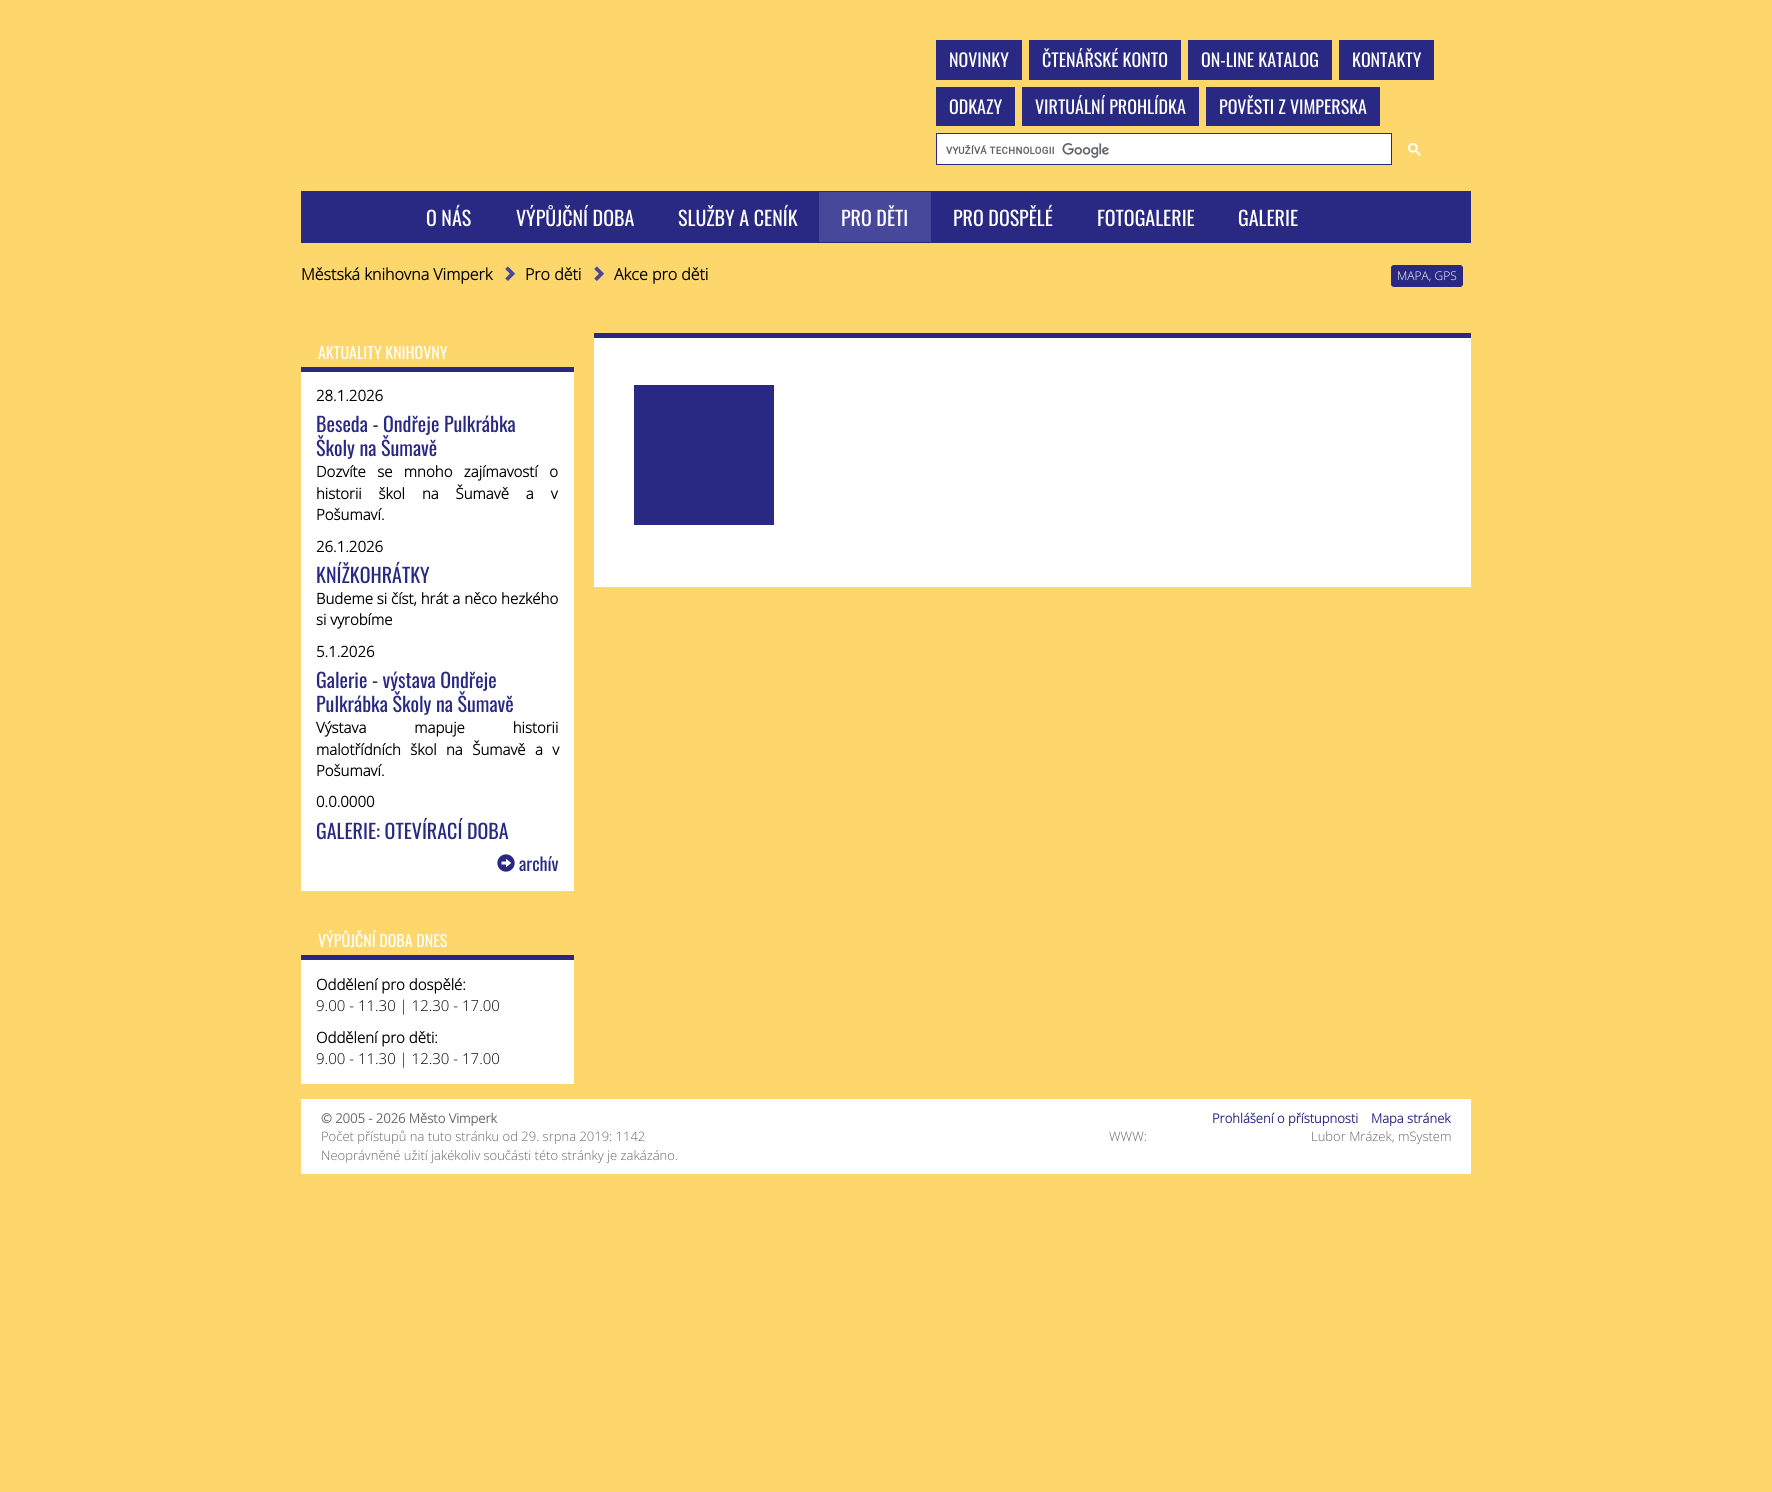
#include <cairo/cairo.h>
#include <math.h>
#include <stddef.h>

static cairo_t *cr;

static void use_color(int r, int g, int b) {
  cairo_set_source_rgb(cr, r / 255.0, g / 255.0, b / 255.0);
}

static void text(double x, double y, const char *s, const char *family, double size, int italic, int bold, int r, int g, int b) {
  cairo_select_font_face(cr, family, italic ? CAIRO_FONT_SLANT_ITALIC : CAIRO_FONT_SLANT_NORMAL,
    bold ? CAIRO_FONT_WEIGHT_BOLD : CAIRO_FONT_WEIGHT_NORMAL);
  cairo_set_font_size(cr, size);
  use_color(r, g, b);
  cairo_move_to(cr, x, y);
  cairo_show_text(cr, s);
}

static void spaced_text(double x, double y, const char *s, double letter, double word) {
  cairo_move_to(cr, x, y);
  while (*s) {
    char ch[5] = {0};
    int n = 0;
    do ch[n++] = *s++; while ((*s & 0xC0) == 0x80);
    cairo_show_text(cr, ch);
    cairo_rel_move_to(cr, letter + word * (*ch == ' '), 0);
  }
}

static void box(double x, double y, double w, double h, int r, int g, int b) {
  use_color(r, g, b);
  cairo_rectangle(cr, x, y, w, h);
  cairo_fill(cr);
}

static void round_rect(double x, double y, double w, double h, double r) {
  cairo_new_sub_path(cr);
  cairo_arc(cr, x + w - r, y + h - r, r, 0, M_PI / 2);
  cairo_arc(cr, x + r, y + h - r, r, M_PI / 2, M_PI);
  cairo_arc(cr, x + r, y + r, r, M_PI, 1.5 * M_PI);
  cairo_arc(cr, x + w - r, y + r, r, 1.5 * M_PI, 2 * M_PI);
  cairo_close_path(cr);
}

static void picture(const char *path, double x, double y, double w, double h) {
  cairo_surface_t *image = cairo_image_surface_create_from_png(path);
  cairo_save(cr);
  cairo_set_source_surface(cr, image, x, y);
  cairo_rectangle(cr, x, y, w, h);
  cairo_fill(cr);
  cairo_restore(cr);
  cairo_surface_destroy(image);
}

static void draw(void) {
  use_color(254, 215, 108);
  cairo_paint(cr);
  box(936, 40, 86, 40, 41, 41, 131);
  box(1029, 40, 152, 40, 41, 41, 131);
  box(1188, 40, 144, 40, 41, 41, 131);
  box(1339, 40, 95, 40, 41, 41, 131);
  box(936, 87, 79, 39, 41, 41, 131);
  box(1022, 87, 177, 39, 41, 41, 131);
  box(1206, 87, 174, 39, 41, 41, 131);
  use_color(255, 255, 255);
  cairo_rectangle(cr, 936.5, 133.5, 455, 31);
  cairo_fill_preserve(cr);
  use_color(41, 41, 131);
  cairo_set_line_width(cr, 1);
  cairo_stroke(cr);
  picture("img_01.png", 946, 143, 163, 15);
  picture("img_02.png", 1408, 143, 13, 13);
  box(301, 191, 1170, 52, 41, 41, 131);
  box(819, 192, 112, 50, 71, 71, 155);
  picture("img_03.png", 505, 266, 11, 15);
  picture("img_03.png", 594, 266, 11, 15);
  use_color(41, 41, 131);
  round_rect(1391.5, 265.5, 71, 21, 2.5);
  cairo_fill_preserve(cr);
  cairo_stroke(cr);
  box(301, 372, 273, 519, 255, 255, 255);
  box(301, 367, 273, 5, 41, 41, 131);
  picture("img_04.png", 497, 854, 18, 18);
  box(301, 960, 273, 124, 255, 255, 255);
  box(301, 955, 273, 5, 41, 41, 131);
  box(594, 338, 877, 249, 255, 255, 255);
  box(594, 333, 877, 5, 41, 41, 131);
  box(634, 385, 140, 140, 41, 41, 131);
  box(301, 1099, 1170, 75, 255, 255, 255);
  text(949, 67, "NOVINKY", "Oswald", 18, 0, 0, 255, 255, 255);
  text(1042, 67, "ČTENÁŘSKÉ KONTO", "Oswald", 18, 0, 0, 255, 255, 255);
  text(1201, 67, "ON-LINE KATALOG", "Oswald", 18, 0, 0, 255, 255, 255);
  text(1352, 67, "KONTAKTY", "Oswald", 18, 0, 0, 255, 255, 255);
  text(949, 114, "ODKAZY", "Oswald", 18, 0, 0, 255, 255, 255);
  text(1035, 114, "VIRTUÁLNÍ PROHLÍDKA", "Oswald", 18, 0, 0, 255, 255, 255);
  text(1219, 114, "POVĚSTI Z VIMPERSKA", "Oswald", 18, 0, 0, 255, 255, 255);
  text(426, 226, "O NÁS", "Oswald", 20, 0, 0, 255, 255, 255);
  text(516, 226, "VÝPŮJČNÍ DOBA", "Oswald", 20, 0, 0, 255, 255, 255);
  text(678, 226, "SLUŽBY A CENÍK", "Oswald", 20, 0, 0, 255, 255, 255);
  text(841, 226, "PRO DĚTI", "Oswald", 20, 0, 0, 255, 255, 255);
  text(953, 226, "PRO DOSPĚLÉ", "Oswald", 20, 0, 0, 255, 255, 255);
  text(1097, 226, "FOTOGALERIE", "Oswald", 20, 0, 0, 255, 255, 255);
  text(1238, 226, "GALERIE", "Oswald", 20, 0, 0, 255, 255, 255);
  text(301, 280, "Městská knihovna Vimperk", "Open Sans", 16, 0, 1, 0, 0, 0);
  text(525, 280, "Pro děti", "Open Sans", 16, 0, 1, 0, 0, 0);
  text(614, 280, "Akce pro děti", "Open Sans", 16, 0, 1, 0, 0, 0);
  text(1397, 280, "MAPA, GPS", "Open Sans Light", 12, 0, 0, 255, 255, 255);
  text(318, 359, "AKTUALITY KNIHOVNY", "Oswald", 16, 0, 0, 255, 255, 255);
  text(316, 401, "28.1.2026", "Open Sans", 15, 0, 1, 0, 0, 0);
  text(316, 432, "Beseda - Ondřeje Pulkrábka", "Oswald", 20, 0, 0, 41, 41, 131);
  text(316, 456, "Školy na Šumavě", "Oswald", 20, 0, 0, 41, 41, 131);
  cairo_select_font_face(cr, "Open Sans", CAIRO_FONT_SLANT_NORMAL, CAIRO_FONT_WEIGHT_BOLD);
  cairo_set_font_size(cr, 15);
  use_color(0, 0, 0);
  spaced_text(316, 477, "Dozvíte se mnoho zajímavostí o", 0, 7.5);
  spaced_text(316, 499, "historii škol na Šumavě a v", 0, 13);
  text(316, 520, "Pošumaví.", "Open Sans", 15, 0, 1, 0, 0, 0);
  text(316, 552, "26.1.2026", "Open Sans", 15, 0, 1, 0, 0, 0);
  text(316, 583, "KNÍŽKOHRÁTKY", "Oswald", 20, 0, 0, 41, 41, 131);
  text(316, 604, "Budeme si číst, hrát a něco hezkého", "Open Sans", 15, 0, 1, 0, 0, 0);
  text(316, 625, "si vyrobíme", "Open Sans", 15, 0, 1, 0, 0, 0);
  text(316, 657, "5.1.2026", "Open Sans", 15, 0, 1, 0, 0, 0);
  text(316, 688, "Galerie - výstava Ondřeje", "Oswald", 20, 0, 0, 41, 41, 131);
  text(316, 712, "Pulkrábka Školy na Šumavě", "Oswald", 20, 0, 0, 41, 41, 131);
  cairo_select_font_face(cr, "Open Sans", CAIRO_FONT_SLANT_NORMAL, CAIRO_FONT_WEIGHT_BOLD);
  cairo_set_font_size(cr, 15);
  use_color(0, 0, 0);
  spaced_text(316, 733, "Výstava mapuje historii", 0, 44);
  spaced_text(316, 755, "malotřídních škol na Šumavě a v", 0, 5.5);
  text(316, 776, "Pošumaví.", "Open Sans", 15, 0, 1, 0, 0, 0);
  text(316, 807, "0.0.0000", "Open Sans", 15, 0, 1, 0, 0, 0);
  text(316, 839, "GALERIE: OTEVÍRACÍ DOBA", "Oswald", 20, 0, 0, 41, 41, 131);
  text(519, 871, "archív", "Oswald", 18, 0, 0, 41, 41, 131);
  text(318, 947, "VÝPŮJČNÍ DOBA DNES", "Oswald", 16, 0, 0, 255, 255, 255);
  text(316, 990, "Oddělení pro dospělé:", "Open Sans", 15, 0, 1, 0, 0, 0);
  text(316, 1011, "9.00 - 11.30 | 12.30 - 17.00", "Open Sans Light", 15, 0, 0, 0, 0, 0);
  text(316, 1043, "Oddělení pro děti:", "Open Sans", 15, 0, 1, 0, 0, 0);
  text(316, 1064, "9.00 - 11.30 | 12.30 - 17.00", "Open Sans Light", 15, 0, 0, 0, 0, 0);
  text(321, 1123, "© 2005 - 2026 Město Vimperk", "Open Sans", 13, 0, 1, 102, 102, 102);
  text(321, 1141, "Počet přístupů na tuto stránku od 29. srpna 2019: 1142", "Open Sans Light", 13, 0, 0, 102, 102, 102);
  text(321, 1160, "Neoprávněné užití jakékoliv součásti této stránky je zakázáno.", "Open Sans Light", 13, 0, 0, 102, 102, 102);
  text(1212, 1123, "Prohlášení o přístupnosti", "Open Sans", 13, 0, 1, 41, 41, 131);
  text(1371, 1123, "Mapa stránek", "Open Sans", 13, 0, 1, 41, 41, 131);
  text(1109, 1141, "WWW:", "Open Sans Light", 13, 0, 0, 102, 102, 102);
  text(1311, 1141, "Lubor Mrázek, mSystem", "Open Sans Light", 13, 0, 0, 102, 102, 102);
}

int main(void) {
  cairo_surface_t *surface = cairo_image_surface_create(CAIRO_FORMAT_RGB24, 1772, 1492);
  cr = cairo_create(surface);
  cairo_font_options_t *options = cairo_font_options_create();
  cairo_font_options_set_hint_metrics(options, CAIRO_HINT_METRICS_OFF);
  cairo_font_options_set_hint_style(options, CAIRO_HINT_STYLE_NONE);
  cairo_set_font_options(cr, options);
  cairo_set_miter_limit(cr, 4);
  draw();
  cairo_surface_write_to_png(surface, "out.png");
  cairo_font_options_destroy(options);
  cairo_destroy(cr);
  cairo_surface_destroy(surface);
  return 0;
}
